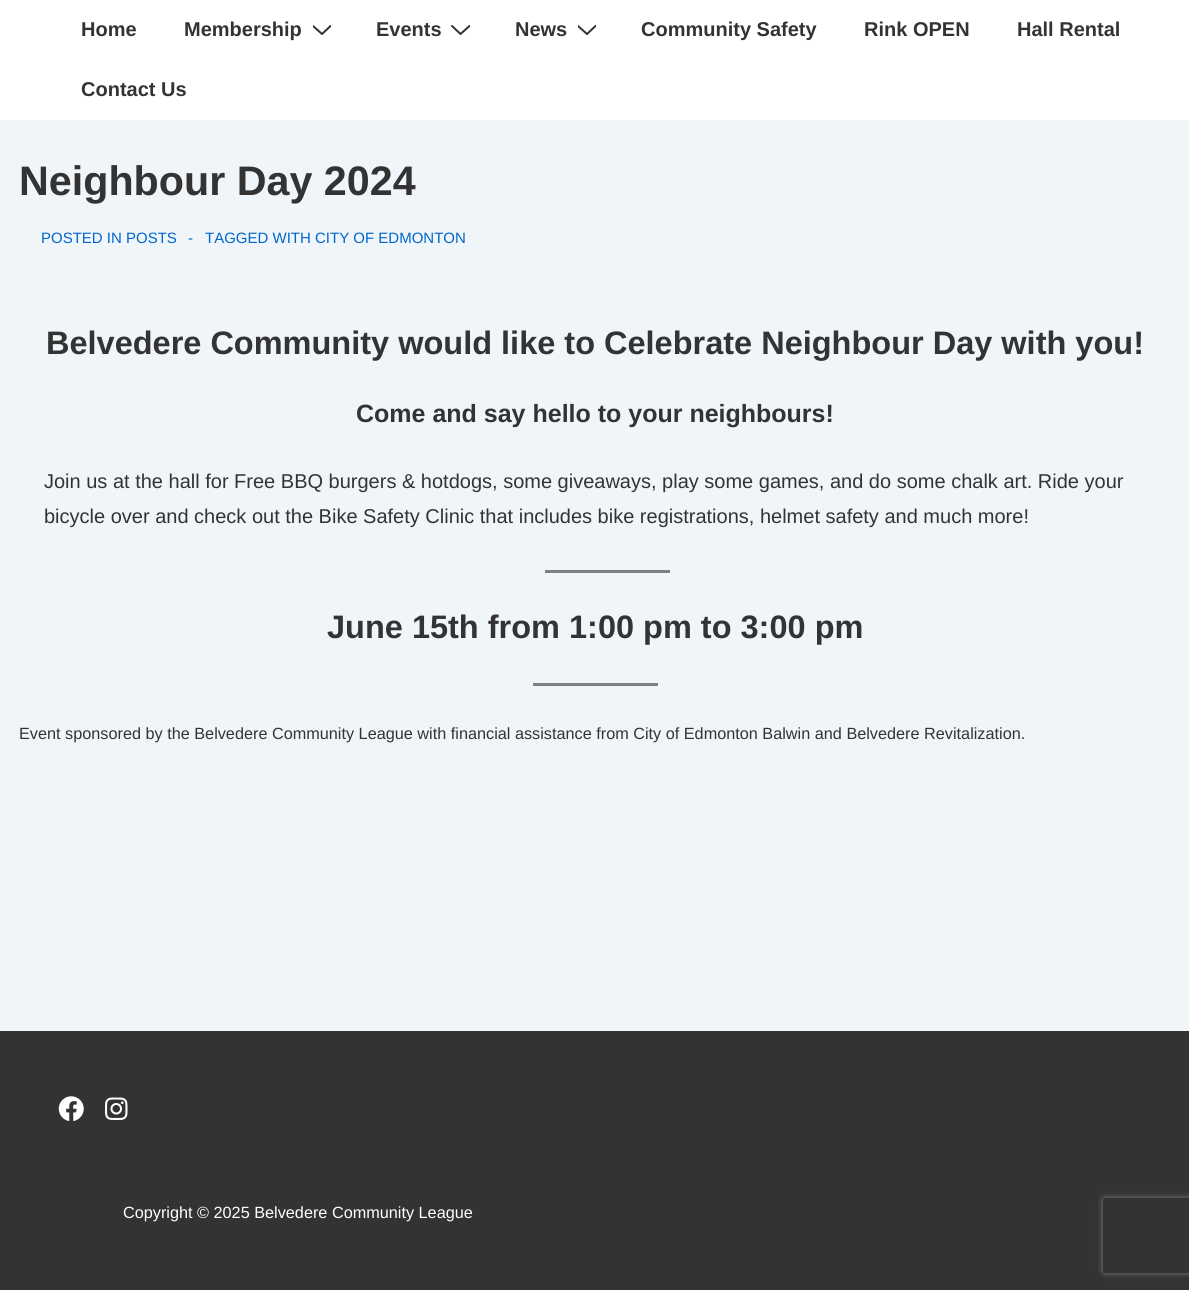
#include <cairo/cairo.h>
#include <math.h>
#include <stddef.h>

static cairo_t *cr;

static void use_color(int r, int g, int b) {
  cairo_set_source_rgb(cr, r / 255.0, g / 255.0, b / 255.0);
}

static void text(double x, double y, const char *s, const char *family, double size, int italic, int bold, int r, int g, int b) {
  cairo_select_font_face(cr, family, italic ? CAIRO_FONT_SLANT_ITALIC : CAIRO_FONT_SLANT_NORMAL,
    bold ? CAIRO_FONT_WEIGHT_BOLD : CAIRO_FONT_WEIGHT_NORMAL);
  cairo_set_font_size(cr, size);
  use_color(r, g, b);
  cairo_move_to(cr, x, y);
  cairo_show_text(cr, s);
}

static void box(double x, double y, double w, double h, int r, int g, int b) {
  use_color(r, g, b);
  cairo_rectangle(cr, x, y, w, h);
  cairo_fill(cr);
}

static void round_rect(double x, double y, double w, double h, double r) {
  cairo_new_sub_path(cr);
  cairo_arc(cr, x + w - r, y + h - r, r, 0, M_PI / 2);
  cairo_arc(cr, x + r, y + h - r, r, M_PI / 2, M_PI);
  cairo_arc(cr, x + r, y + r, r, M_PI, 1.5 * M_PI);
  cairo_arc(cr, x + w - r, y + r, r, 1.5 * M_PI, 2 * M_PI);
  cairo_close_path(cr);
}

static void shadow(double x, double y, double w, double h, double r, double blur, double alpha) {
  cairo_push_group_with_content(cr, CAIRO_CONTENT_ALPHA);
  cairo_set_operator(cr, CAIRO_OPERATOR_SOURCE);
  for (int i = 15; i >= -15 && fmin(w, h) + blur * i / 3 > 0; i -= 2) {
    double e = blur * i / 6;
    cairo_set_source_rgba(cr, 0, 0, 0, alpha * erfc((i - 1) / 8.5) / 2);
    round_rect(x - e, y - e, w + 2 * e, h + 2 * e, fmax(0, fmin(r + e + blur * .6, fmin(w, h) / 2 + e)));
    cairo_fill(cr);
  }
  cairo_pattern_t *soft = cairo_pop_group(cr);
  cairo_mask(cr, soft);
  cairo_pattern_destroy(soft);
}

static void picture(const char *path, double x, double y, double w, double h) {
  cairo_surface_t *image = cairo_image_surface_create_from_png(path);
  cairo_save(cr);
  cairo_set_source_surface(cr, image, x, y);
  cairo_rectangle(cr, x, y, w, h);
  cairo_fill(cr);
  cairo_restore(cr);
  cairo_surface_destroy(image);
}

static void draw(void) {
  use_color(240, 245, 250);
  cairo_paint(cr);
  box(0, 0, 1189, 120, 255, 255, 255);
  cairo_save(cr);
  cairo_rectangle(cr, 313, 25, 18, 10);
  cairo_clip(cr);
  cairo_new_path(cr);
  cairo_move_to(cr, 313, 26);
  cairo_line_to(cr, 322, 34);
  cairo_line_to(cr, 330.5, 26);
  use_color(51, 51, 51);
  cairo_set_line_cap(cr, CAIRO_LINE_CAP_ROUND);
  cairo_stroke(cr);
  cairo_restore(cr);
  cairo_save(cr);
  cairo_rectangle(cr, 451, 25, 19, 10);
  cairo_clip(cr);
  cairo_new_path(cr);
  cairo_move_to(cr, 452, 26);
  cairo_line_to(cr, 460.5, 34);
  cairo_line_to(cr, 469.5, 26);
  use_color(51, 51, 51);
  cairo_set_line_cap(cr, CAIRO_LINE_CAP_ROUND);
  cairo_stroke(cr);
  cairo_restore(cr);
  cairo_save(cr);
  cairo_rectangle(cr, 578, 25, 18, 10);
  cairo_clip(cr);
  cairo_new_path(cr);
  cairo_move_to(cr, 578, 26);
  cairo_line_to(cr, 587, 34);
  cairo_line_to(cr, 595.5, 26);
  use_color(51, 51, 51);
  cairo_set_line_cap(cr, CAIRO_LINE_CAP_ROUND);
  cairo_stroke(cr);
  cairo_restore(cr);
  box(545, 570, 125, 3, 128, 128, 128);
  box(533, 683, 125, 3, 128, 128, 128);
  box(0, 1031, 1189, 259, 51, 51, 51);
  picture("img_01.png", 58, 1096, 26, 26);
  picture("img_02.png", 105, 1097, 23, 23);
  cairo_save(cr);
  cairo_set_fill_rule(cr, CAIRO_FILL_RULE_EVEN_ODD);
  cairo_new_path(cr);
  cairo_move_to(cr, 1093, 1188);
  cairo_line_to(cr, 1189, 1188);
  cairo_line_to(cr, 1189, 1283);
  cairo_line_to(cr, 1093, 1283);
  cairo_close_path(cr);
  cairo_move_to(cr, 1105.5, 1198);
  cairo_line_to(cr, 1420.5, 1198);
  cairo_curve_to(cr, 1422, 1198, 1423, 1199, 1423, 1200.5);
  cairo_line_to(cr, 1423, 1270.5);
  cairo_curve_to(cr, 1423, 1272, 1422, 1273, 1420.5, 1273);
  cairo_line_to(cr, 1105.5, 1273);
  cairo_curve_to(cr, 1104, 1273, 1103, 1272, 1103, 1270.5);
  cairo_line_to(cr, 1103, 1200.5);
  cairo_curve_to(cr, 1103, 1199, 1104, 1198, 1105.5, 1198);
  cairo_close_path(cr);
  cairo_clip(cr);
  use_color(128, 128, 128);
  shadow(1103, 1198, 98, 75, 2.5, 3, 1);
  cairo_restore(cr);
  text(81, 36, "Home", "Liberation Sans", 20, 0, 1, 51, 51, 51);
  text(184, 36, "Membership", "Liberation Sans", 20, 0, 1, 51, 51, 51);
  text(376, 36, "Events", "Liberation Sans", 20, 0, 1, 51, 51, 51);
  text(515, 36, "News", "Liberation Sans", 20, 0, 1, 51, 51, 51);
  text(641, 36, "Community Safety", "Liberation Sans", 20, 0, 1, 51, 51, 51);
  text(864, 36, "Rink OPEN", "Liberation Sans", 20, 0, 1, 51, 51, 51);
  text(1017, 36, "Hall Rental", "Liberation Sans", 20, 0, 1, 51, 51, 51);
  text(81, 96, "Contact Us", "Liberation Sans", 20, 0, 1, 51, 51, 51);
  text(19, 195, "Neighbour Day 2024", "Liberation Sans", 41.25, 0, 1, 51, 51, 51);
  text(41, 243, "POSTED IN POSTS", "Liberation Sans", 15, 0, 0, 0, 102, 204);
  text(188, 243, "-", "Liberation Sans", 15, 0, 0, 0, 102, 204);
  text(205, 243, "TAGGED WITH CITY OF EDMONTON", "Liberation Sans", 15, 0, 0, 0, 102, 204);
  text(46, 354, "Belvedere Community would like to Celebrate Neighbour Day with you!", "Liberation Sans", 32.5, 0, 1, 51, 51, 51);
  text(356, 422, "Come and say hello to your neighbours!", "Liberation Sans", 25, 0, 1, 51, 51, 51);
  text(44, 488, "Join us at the hall for Free BBQ burgers & hotdogs, some giveaways, play some games, and do some chalk art. Ride your", "Liberation Sans", 20, 0, 0, 51, 51, 51);
  text(44, 523, "bicycle over and check out the Bike Safety Clinic that includes bike registrations, helmet safety and much more!", "Liberation Sans", 20, 0, 0, 51, 51, 51);
  text(327, 638, "June 15th from 1:00 pm to 3:00 pm", "Liberation Sans", 32.5, 0, 1, 51, 51, 51);
  text(19, 739, "Event sponsored by the Belvedere Community League with financial assistance from City of Edmonton Balwin and Belvedere Revitalization.", "Liberation Sans", 16.25, 0, 0, 51, 51, 51);
  text(123, 1218, "Copyright © 2025 Belvedere Community League", "Liberation Sans", 16.25, 0, 0, 255, 255, 255);
}

int main(void) {
  cairo_surface_t *surface = cairo_image_surface_create(CAIRO_FORMAT_RGB24, 1189, 1290);
  cr = cairo_create(surface);
  cairo_font_options_t *options = cairo_font_options_create();
  cairo_font_options_set_hint_metrics(options, CAIRO_HINT_METRICS_OFF);
  cairo_font_options_set_hint_style(options, CAIRO_HINT_STYLE_NONE);
  cairo_set_font_options(cr, options);
  cairo_set_miter_limit(cr, 4);
  draw();
  cairo_surface_write_to_png(surface, "out.png");
  cairo_font_options_destroy(options);
  cairo_destroy(cr);
  cairo_surface_destroy(surface);
  return 0;
}
